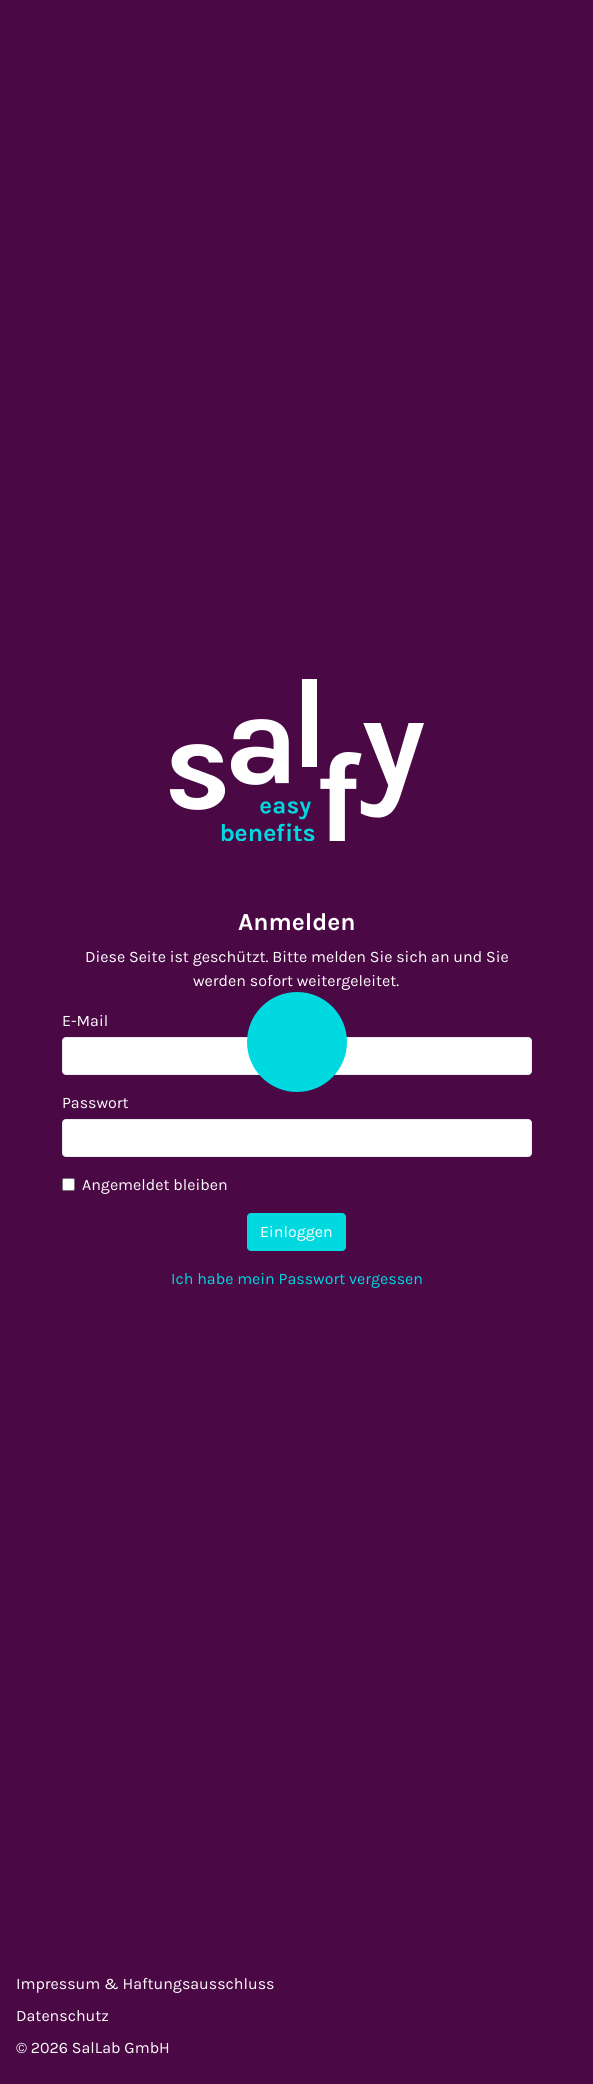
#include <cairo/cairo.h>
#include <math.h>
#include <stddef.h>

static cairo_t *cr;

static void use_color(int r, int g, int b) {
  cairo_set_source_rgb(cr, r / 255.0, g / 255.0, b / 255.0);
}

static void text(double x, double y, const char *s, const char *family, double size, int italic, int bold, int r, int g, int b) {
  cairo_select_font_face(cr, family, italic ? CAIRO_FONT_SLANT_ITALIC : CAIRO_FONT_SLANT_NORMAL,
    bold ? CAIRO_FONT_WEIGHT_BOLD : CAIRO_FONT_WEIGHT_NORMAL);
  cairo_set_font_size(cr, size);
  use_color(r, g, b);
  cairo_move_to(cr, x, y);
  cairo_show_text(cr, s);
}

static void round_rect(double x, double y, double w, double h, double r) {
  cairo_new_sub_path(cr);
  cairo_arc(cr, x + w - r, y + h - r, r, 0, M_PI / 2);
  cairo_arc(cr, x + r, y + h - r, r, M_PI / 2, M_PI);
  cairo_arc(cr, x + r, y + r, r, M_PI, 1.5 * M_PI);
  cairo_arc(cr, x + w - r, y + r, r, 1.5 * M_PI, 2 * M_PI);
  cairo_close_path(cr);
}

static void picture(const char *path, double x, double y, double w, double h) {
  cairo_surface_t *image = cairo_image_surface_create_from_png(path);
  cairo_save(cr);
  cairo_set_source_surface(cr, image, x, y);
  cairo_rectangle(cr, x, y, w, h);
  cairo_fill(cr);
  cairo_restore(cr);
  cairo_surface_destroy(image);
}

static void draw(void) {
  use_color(74, 8, 69);
  cairo_paint(cr);
  picture("img_01.png", 170, 679, 254, 162);
  use_color(255, 255, 255);
  round_rect(62.5, 1037.5, 469, 37, 3.5);
  cairo_fill_preserve(cr);
  use_color(231, 236, 239);
  cairo_set_line_width(cr, 1);
  cairo_stroke(cr);
  use_color(255, 255, 255);
  round_rect(62.5, 1119.5, 469, 37, 3.5);
  cairo_fill_preserve(cr);
  use_color(231, 236, 239);
  cairo_stroke(cr);
  use_color(255, 255, 255);
  round_rect(62.5, 1178.5, 12, 12, 1.5);
  cairo_fill_preserve(cr);
  use_color(118, 118, 118);
  cairo_stroke(cr);
  use_color(0, 217, 224);
  round_rect(247.5, 1213.5, 98, 37, 3.5);
  cairo_fill_preserve(cr);
  cairo_stroke(cr);
  cairo_arc(cr, 297, 1042, 50, 0, 2 * M_PI);
  cairo_fill(cr);
  text(238, 930, "Anmelden", "Karla", 24.5, 0, 1, 255, 255, 255);
  text(85, 962, "Diese Seite ist geschützt. Bitte melden Sie sich an und Sie", "Karla", 16, 0, 0, 255, 255, 255);
  text(193, 986, "werden sofort weitergeleitet.", "Karla", 16, 0, 0, 255, 255, 255);
  text(62, 1026, "E-Mail", "Karla", 16, 0, 0, 255, 255, 255);
  text(62, 1108, "Passwort", "Karla", 16, 0, 0, 255, 255, 255);
  text(82, 1190, "Angemeldet bleiben", "Karla", 16, 0, 0, 255, 255, 255);
  text(260, 1237, "Einloggen", "Karla", 16, 0, 0, 255, 255, 255);
  text(171, 1284, "Ich habe mein Passwort vergessen", "Karla", 16, 0, 0, 0, 217, 224);
  text(16, 1989, "Impressum & Haftungsausschluss", "Karla", 16, 0, 0, 255, 255, 255);
  text(16, 2021, "Datenschutz", "Karla", 16, 0, 0, 255, 255, 255);
  text(16, 2053, "© 2026 SalLab GmbH", "Karla", 16, 0, 0, 255, 255, 255);
}

int main(void) {
  cairo_surface_t *surface = cairo_image_surface_create(CAIRO_FORMAT_RGB24, 593, 2084);
  cr = cairo_create(surface);
  cairo_font_options_t *options = cairo_font_options_create();
  cairo_font_options_set_hint_metrics(options, CAIRO_HINT_METRICS_OFF);
  cairo_font_options_set_hint_style(options, CAIRO_HINT_STYLE_NONE);
  cairo_set_font_options(cr, options);
  cairo_set_miter_limit(cr, 4);
  draw();
  cairo_surface_write_to_png(surface, "out.png");
  cairo_font_options_destroy(options);
  cairo_destroy(cr);
  cairo_surface_destroy(surface);
  return 0;
}
